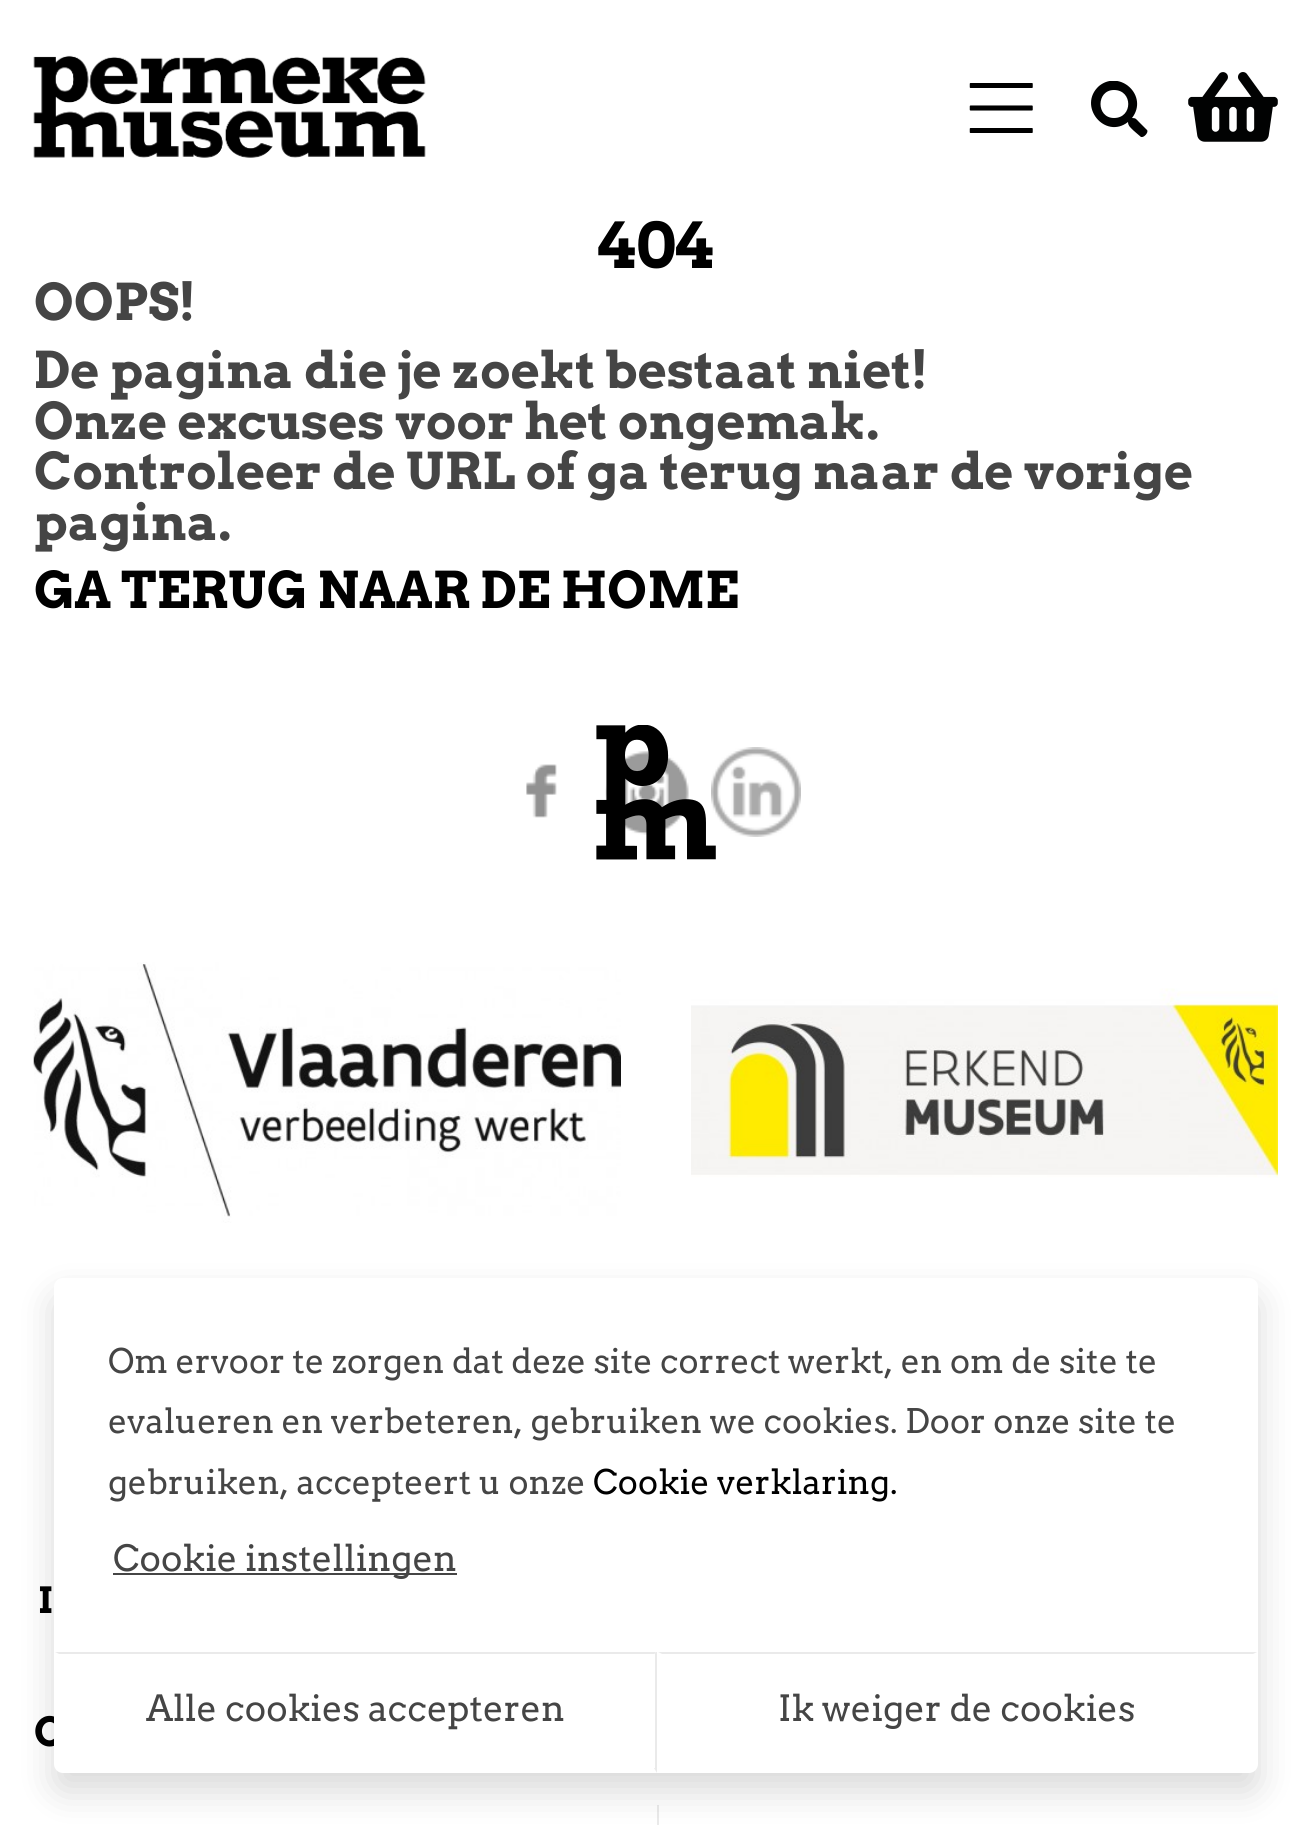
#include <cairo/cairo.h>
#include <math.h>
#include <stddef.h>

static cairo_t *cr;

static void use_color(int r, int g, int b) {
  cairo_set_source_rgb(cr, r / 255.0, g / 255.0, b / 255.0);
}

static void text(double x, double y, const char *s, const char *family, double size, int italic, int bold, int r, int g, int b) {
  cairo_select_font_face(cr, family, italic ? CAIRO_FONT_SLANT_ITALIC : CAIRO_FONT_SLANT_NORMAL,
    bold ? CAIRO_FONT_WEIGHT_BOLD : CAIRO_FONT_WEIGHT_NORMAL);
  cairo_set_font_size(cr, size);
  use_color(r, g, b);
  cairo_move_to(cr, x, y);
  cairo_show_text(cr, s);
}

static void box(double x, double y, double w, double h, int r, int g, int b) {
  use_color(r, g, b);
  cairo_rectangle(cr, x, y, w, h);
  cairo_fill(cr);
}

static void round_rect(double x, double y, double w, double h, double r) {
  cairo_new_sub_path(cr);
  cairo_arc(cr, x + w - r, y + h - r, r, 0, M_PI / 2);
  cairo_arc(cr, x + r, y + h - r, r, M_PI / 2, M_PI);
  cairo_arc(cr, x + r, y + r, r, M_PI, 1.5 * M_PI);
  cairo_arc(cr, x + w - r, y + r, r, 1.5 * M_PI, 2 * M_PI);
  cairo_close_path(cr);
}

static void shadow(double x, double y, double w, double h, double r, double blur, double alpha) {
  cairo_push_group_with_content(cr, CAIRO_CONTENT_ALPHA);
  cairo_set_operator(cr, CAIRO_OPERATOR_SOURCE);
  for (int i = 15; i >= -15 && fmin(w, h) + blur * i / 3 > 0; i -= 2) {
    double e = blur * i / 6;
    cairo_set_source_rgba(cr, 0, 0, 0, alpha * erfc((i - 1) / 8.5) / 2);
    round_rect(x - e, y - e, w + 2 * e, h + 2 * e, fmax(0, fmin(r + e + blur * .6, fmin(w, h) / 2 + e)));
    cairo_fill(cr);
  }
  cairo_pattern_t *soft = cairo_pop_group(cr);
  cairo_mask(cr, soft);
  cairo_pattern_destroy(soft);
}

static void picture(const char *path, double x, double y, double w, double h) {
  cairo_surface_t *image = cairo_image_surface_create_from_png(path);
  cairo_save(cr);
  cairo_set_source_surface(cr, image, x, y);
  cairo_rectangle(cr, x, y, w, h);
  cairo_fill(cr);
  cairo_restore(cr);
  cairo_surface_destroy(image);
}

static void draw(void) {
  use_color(255, 255, 255);
  cairo_paint(cr);
  picture("img_01.png", 33, 55, 393, 103);
  picture("img_02.png", 969, 83, 64, 50);
  cairo_save(cr);
  cairo_rectangle(cr, 1091, 81, 57, 56);
  cairo_clip(cr);
  use_color(1, 2, 2);
  cairo_new_path(cr);
  cairo_move_to(cr, 1147, 130);
  cairo_line_to(cr, 1139, 122);
  cairo_curve_to(cr, 1136, 119, 1136, 118, 1132, 118);
  cairo_curve_to(cr, 1149, 96, 1120, 69, 1099, 86);
  cairo_curve_to(cr, 1077, 106, 1105, 140, 1128, 122);
  cairo_curve_to(cr, 1128, 126, 1131, 128, 1134, 131);
  cairo_line_to(cr, 1141, 137);
  cairo_curve_to(cr, 1144, 138, 1149, 132, 1147, 130);
  cairo_close_path(cr);
  cairo_move_to(cr, 1114, 118);
  cairo_curve_to(cr, 1096, 118, 1096, 90, 1114, 90);
  cairo_curve_to(cr, 1133, 90, 1133, 118, 1114, 118);
  cairo_close_path(cr);
  cairo_fill(cr);
  cairo_restore(cr);
  picture("img_03.png", 1188, 72, 90, 70);
  picture("img_06.png", 605, 751, 84, 84);
  picture("img_07.png", 711, 747, 90, 90);
  picture("img_04.png", 596, 725, 120, 135);
  picture("img_05.png", 526, 764, 31, 54);
  picture("img_08.png", 33, 962, 588, 261);
  picture("img_09.png", 691, 988, 587, 190);
  box(657, 1805, 2, 20, 234, 234, 234);
  use_color(0, 0, 0);
  shadow(54, 1296, 1204, 495, 9, 18, 0.15);
  text(598, 268, "404", "Arvo", 63, 0, 1, 0, 0, 0);
  text(34, 320, "OOPS!", "Arvo", 50.5, 0, 1, 69, 69, 69);
  text(34, 388, "De pagina die je zoekt bestaat niet!", "Arvo", 50.5, 0, 1, 69, 69, 69);
  text(34, 439, "Onze excuses voor het ongemak.", "Arvo", 50.5, 0, 1, 69, 69, 69);
  text(34, 489, "Controleer de URL of ga terug naar de vorige", "Arvo", 50.5, 0, 1, 69, 69, 69);
  text(34, 540, "pagina.", "Arvo", 50.5, 0, 1, 69, 69, 69);
  text(34, 608, "GA TERUG NAAR DE HOME", "Arvo", 50.5, 0, 1, 0, 0, 0);
  text(38, 1613, "I", "Arvo", 36, 0, 1, 0, 0, 0);
  text(34, 1746, "C", "Arvo", 40, 0, 1, 0, 0, 0);
  use_color(255, 255, 255);
  round_rect(54, 1278, 1204, 495, 9);
  cairo_fill(cr);
  text(108, 1373, "Om ervoor te zorgen dat deze site correct werkt, en om de site te", "Arvo", 33.75, 0, 0, 69, 69, 69);
  text(108, 1433, "evalueren en verbeteren, gebruiken we cookies. Door onze site te", "Arvo", 33.75, 0, 0, 69, 69, 69);
  text(108, 1494, "gebruiken, accepteert u onze", "Arvo", 33.75, 0, 0, 69, 69, 69);
  text(593, 1494, "Cookie verklaring.", "Arvo", 33.75, 0, 0, 0, 0, 0);
  box(113, 1573, 344, 2, 69, 69, 69);
  text(113, 1571, "Cookie instellingen", "Arvo", 36, 0, 0, 69, 69, 69);
  use_color(234, 234, 234);
  cairo_new_path(cr);
  cairo_move_to(cr, 656, 1652);
  cairo_line_to(cr, 55, 1652);
  cairo_line_to(cr, 59, 1654);
  cairo_line_to(cr, 654, 1654);
  cairo_close_path(cr);
  cairo_fill(cr);
  cairo_new_path(cr);
  cairo_move_to(cr, 657, 1773);
  cairo_line_to(cr, 657, 1652);
  cairo_line_to(cr, 656, 1652);
  cairo_line_to(cr, 654, 1654);
  cairo_line_to(cr, 655, 1654);
  cairo_line_to(cr, 655, 1768);
  cairo_line_to(cr, 654, 1768);
  cairo_close_path(cr);
  cairo_fill(cr);
  text(146, 1721, "Alle cookies accepteren", "Arvo", 36, 0, 0, 69, 69, 69);
  use_color(234, 234, 234);
  cairo_new_path(cr);
  cairo_move_to(cr, 662, 1654);
  cairo_line_to(cr, 1253, 1654);
  cairo_line_to(cr, 1257, 1652);
  cairo_line_to(cr, 658, 1652);
  cairo_close_path(cr);
  cairo_fill(cr);
  text(778, 1721, "Ik weiger de cookies", "Arvo", 36, 0, 0, 69, 69, 69);
}

int main(void) {
  cairo_surface_t *surface = cairo_image_surface_create(CAIRO_FORMAT_RGB24, 1310, 1825);
  cr = cairo_create(surface);
  cairo_font_options_t *options = cairo_font_options_create();
  cairo_font_options_set_hint_metrics(options, CAIRO_HINT_METRICS_OFF);
  cairo_font_options_set_hint_style(options, CAIRO_HINT_STYLE_NONE);
  cairo_set_font_options(cr, options);
  cairo_set_miter_limit(cr, 4);
  draw();
  cairo_surface_write_to_png(surface, "out.png");
  cairo_font_options_destroy(options);
  cairo_destroy(cr);
  cairo_surface_destroy(surface);
  return 0;
}
